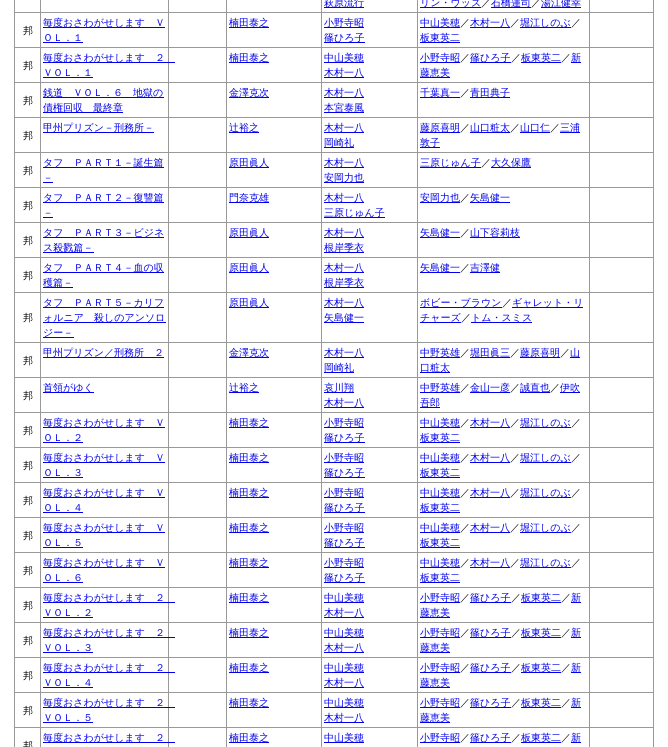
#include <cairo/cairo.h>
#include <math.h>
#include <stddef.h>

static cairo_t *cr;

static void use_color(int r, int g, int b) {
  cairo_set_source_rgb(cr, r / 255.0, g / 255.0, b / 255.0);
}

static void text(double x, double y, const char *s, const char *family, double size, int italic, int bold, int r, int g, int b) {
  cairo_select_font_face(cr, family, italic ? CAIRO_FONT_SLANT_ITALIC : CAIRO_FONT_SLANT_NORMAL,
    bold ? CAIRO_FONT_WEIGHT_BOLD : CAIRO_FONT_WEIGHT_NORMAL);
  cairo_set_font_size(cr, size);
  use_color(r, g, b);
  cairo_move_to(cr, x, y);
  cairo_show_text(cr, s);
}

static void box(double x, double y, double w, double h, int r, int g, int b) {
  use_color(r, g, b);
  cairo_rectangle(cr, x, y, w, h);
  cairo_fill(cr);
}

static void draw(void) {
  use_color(255, 255, 255);
  cairo_paint(cr);
  box(14, 0, 640, 747, 153, 153, 153);
  box(15, 0, 25, 12, 255, 255, 255);
  box(41, 0, 127, 12, 255, 255, 255);
  box(169, 0, 57, 12, 255, 255, 255);
  box(227, 0, 94, 12, 255, 255, 255);
  box(322, 0, 95, 12, 255, 255, 255);
  box(324, 7, 40, 1, 0, 0, 238);
  box(418, 0, 171, 12, 255, 255, 255);
  box(420, 7, 61, 1, 0, 0, 238);
  box(491, 7, 40, 1, 0, 0, 238);
  box(541, 7, 40, 1, 0, 0, 238);
  box(590, 0, 63, 12, 255, 255, 255);
  box(15, 13, 25, 34, 255, 255, 255);
  box(41, 13, 127, 34, 255, 255, 255);
  box(43, 27, 122, 1, 0, 0, 238);
  box(43, 42, 40, 1, 0, 0, 238);
  box(169, 13, 57, 34, 255, 255, 255);
  box(227, 13, 94, 34, 255, 255, 255);
  box(229, 27, 40, 1, 0, 0, 238);
  box(322, 13, 95, 34, 255, 255, 255);
  box(324, 27, 40, 1, 0, 0, 238);
  box(324, 42, 41, 1, 0, 0, 238);
  box(418, 13, 171, 34, 255, 255, 255);
  box(420, 27, 40, 1, 0, 0, 238);
  box(470, 27, 40, 1, 0, 0, 238);
  box(520, 27, 51, 1, 0, 0, 238);
  box(420, 42, 40, 1, 0, 0, 238);
  box(590, 13, 63, 34, 255, 255, 255);
  box(15, 48, 25, 34, 255, 255, 255);
  box(41, 48, 127, 34, 255, 255, 255);
  box(169, 48, 57, 34, 255, 255, 255);
  box(43, 62, 132, 1, 0, 0, 238);
  box(43, 77, 50, 1, 0, 0, 238);
  box(227, 48, 94, 34, 255, 255, 255);
  box(229, 62, 40, 1, 0, 0, 238);
  box(322, 48, 95, 34, 255, 255, 255);
  box(324, 62, 40, 1, 0, 0, 238);
  box(324, 77, 40, 1, 0, 0, 238);
  box(418, 48, 171, 34, 255, 255, 255);
  box(420, 62, 40, 1, 0, 0, 238);
  box(470, 62, 41, 1, 0, 0, 238);
  box(521, 62, 40, 1, 0, 0, 238);
  box(571, 62, 10, 1, 0, 0, 238);
  box(420, 77, 30, 1, 0, 0, 238);
  box(590, 48, 63, 34, 255, 255, 255);
  box(41, 83, 127, 34, 255, 255, 255);
  box(43, 97, 121, 1, 0, 0, 238);
  box(43, 112, 80, 1, 0, 0, 238);
  box(169, 83, 57, 34, 255, 255, 255);
  box(227, 83, 94, 34, 255, 255, 255);
  box(229, 97, 40, 1, 0, 0, 238);
  box(322, 83, 95, 34, 255, 255, 255);
  box(324, 97, 40, 1, 0, 0, 238);
  box(324, 112, 40, 1, 0, 0, 238);
  box(418, 83, 171, 34, 255, 255, 255);
  box(420, 97, 40, 1, 0, 0, 238);
  box(470, 97, 40, 1, 0, 0, 238);
  box(590, 83, 63, 34, 255, 255, 255);
  box(15, 83, 25, 34, 255, 255, 255);
  box(15, 118, 25, 34, 255, 255, 255);
  box(41, 118, 127, 34, 255, 255, 255);
  box(43, 132, 111, 1, 0, 0, 238);
  box(169, 118, 57, 34, 255, 255, 255);
  box(227, 118, 94, 34, 255, 255, 255);
  box(229, 132, 30, 1, 0, 0, 238);
  box(322, 118, 95, 34, 255, 255, 255);
  box(324, 132, 40, 1, 0, 0, 238);
  box(324, 147, 30, 1, 0, 0, 238);
  box(418, 118, 171, 34, 255, 255, 255);
  box(420, 132, 40, 1, 0, 0, 238);
  box(470, 132, 40, 1, 0, 0, 238);
  box(520, 132, 30, 1, 0, 0, 238);
  box(560, 132, 20, 1, 0, 0, 238);
  box(420, 147, 20, 1, 0, 0, 238);
  box(590, 118, 63, 34, 255, 255, 255);
  box(41, 153, 127, 34, 255, 255, 255);
  box(43, 167, 121, 1, 0, 0, 238);
  box(43, 182, 10, 1, 0, 0, 238);
  box(169, 153, 57, 34, 255, 255, 255);
  box(227, 153, 94, 34, 255, 255, 255);
  box(229, 167, 40, 1, 0, 0, 238);
  box(322, 153, 95, 34, 255, 255, 255);
  box(324, 167, 40, 1, 0, 0, 238);
  box(324, 182, 40, 1, 0, 0, 238);
  box(418, 153, 171, 34, 255, 255, 255);
  box(420, 167, 61, 1, 0, 0, 238);
  box(491, 167, 40, 1, 0, 0, 238);
  box(590, 153, 63, 34, 255, 255, 255);
  box(15, 153, 25, 34, 255, 255, 255);
  box(41, 188, 127, 34, 255, 255, 255);
  box(43, 202, 121, 1, 0, 0, 238);
  box(43, 217, 10, 1, 0, 0, 238);
  box(169, 188, 57, 34, 255, 255, 255);
  box(227, 188, 94, 34, 255, 255, 255);
  box(229, 202, 40, 1, 0, 0, 238);
  box(322, 188, 95, 34, 255, 255, 255);
  box(324, 202, 40, 1, 0, 0, 238);
  box(324, 217, 61, 1, 0, 0, 238);
  box(418, 188, 171, 34, 255, 255, 255);
  box(420, 202, 40, 1, 0, 0, 238);
  box(470, 202, 40, 1, 0, 0, 238);
  box(590, 188, 63, 34, 255, 255, 255);
  box(15, 188, 25, 34, 255, 255, 255);
  box(15, 223, 25, 34, 255, 255, 255);
  box(41, 223, 127, 34, 255, 255, 255);
  box(43, 237, 121, 1, 0, 0, 238);
  box(43, 252, 51, 1, 0, 0, 238);
  box(169, 223, 57, 34, 255, 255, 255);
  box(227, 223, 94, 34, 255, 255, 255);
  box(229, 237, 40, 1, 0, 0, 238);
  box(322, 223, 95, 34, 255, 255, 255);
  box(324, 237, 40, 1, 0, 0, 238);
  box(324, 252, 40, 1, 0, 0, 238);
  box(418, 223, 171, 34, 255, 255, 255);
  box(420, 237, 40, 1, 0, 0, 238);
  box(470, 237, 50, 1, 0, 0, 238);
  box(590, 223, 63, 34, 255, 255, 255);
  box(41, 258, 127, 34, 255, 255, 255);
  box(43, 272, 121, 1, 0, 0, 238);
  box(43, 287, 30, 1, 0, 0, 238);
  box(169, 258, 57, 34, 255, 255, 255);
  box(227, 258, 94, 34, 255, 255, 255);
  box(229, 272, 40, 1, 0, 0, 238);
  box(322, 258, 95, 34, 255, 255, 255);
  box(324, 272, 40, 1, 0, 0, 238);
  box(324, 287, 40, 1, 0, 0, 238);
  box(418, 258, 171, 34, 255, 255, 255);
  box(420, 272, 40, 1, 0, 0, 238);
  box(470, 272, 30, 1, 0, 0, 238);
  box(590, 258, 63, 34, 255, 255, 255);
  box(15, 258, 25, 34, 255, 255, 255);
  box(15, 293, 25, 49, 255, 255, 255);
  box(41, 293, 127, 49, 255, 255, 255);
  box(43, 307, 121, 1, 0, 0, 238);
  box(43, 322, 123, 1, 0, 0, 238);
  box(43, 337, 31, 1, 0, 0, 238);
  box(169, 293, 57, 49, 255, 255, 255);
  box(227, 293, 94, 49, 255, 255, 255);
  box(229, 307, 40, 1, 0, 0, 238);
  box(322, 293, 95, 49, 255, 255, 255);
  box(324, 307, 40, 1, 0, 0, 238);
  box(324, 322, 40, 1, 0, 0, 238);
  box(418, 293, 171, 49, 255, 255, 255);
  box(420, 307, 82, 1, 0, 0, 238);
  box(512, 307, 71, 1, 0, 0, 238);
  box(420, 322, 41, 1, 0, 0, 238);
  box(471, 322, 61, 1, 0, 0, 238);
  box(590, 293, 63, 49, 255, 255, 255);
  box(15, 343, 25, 34, 255, 255, 255);
  box(41, 343, 127, 34, 255, 255, 255);
  box(43, 357, 121, 1, 0, 0, 238);
  box(169, 343, 57, 34, 255, 255, 255);
  box(227, 343, 94, 34, 255, 255, 255);
  box(229, 357, 40, 1, 0, 0, 238);
  box(322, 343, 95, 34, 255, 255, 255);
  box(324, 357, 40, 1, 0, 0, 238);
  box(324, 372, 30, 1, 0, 0, 238);
  box(418, 343, 171, 34, 255, 255, 255);
  box(420, 357, 40, 1, 0, 0, 238);
  box(470, 357, 40, 1, 0, 0, 238);
  box(520, 357, 40, 1, 0, 0, 238);
  box(570, 357, 10, 1, 0, 0, 238);
  box(420, 372, 30, 1, 0, 0, 238);
  box(590, 343, 63, 34, 255, 255, 255);
  box(15, 378, 25, 34, 255, 255, 255);
  box(41, 378, 127, 34, 255, 255, 255);
  box(43, 392, 51, 1, 0, 0, 238);
  box(169, 378, 57, 34, 255, 255, 255);
  box(227, 378, 94, 34, 255, 255, 255);
  box(229, 392, 30, 1, 0, 0, 238);
  box(322, 378, 95, 34, 255, 255, 255);
  box(324, 392, 30, 1, 0, 0, 238);
  box(324, 407, 40, 1, 0, 0, 238);
  box(418, 378, 171, 34, 255, 255, 255);
  box(420, 392, 40, 1, 0, 0, 238);
  box(470, 392, 40, 1, 0, 0, 238);
  box(520, 392, 30, 1, 0, 0, 238);
  box(560, 392, 20, 1, 0, 0, 238);
  box(420, 407, 20, 1, 0, 0, 238);
  box(590, 378, 63, 34, 255, 255, 255);
  box(15, 413, 25, 34, 255, 255, 255);
  box(41, 413, 127, 34, 255, 255, 255);
  box(43, 427, 122, 1, 0, 0, 238);
  box(43, 442, 40, 1, 0, 0, 238);
  box(169, 413, 57, 34, 255, 255, 255);
  box(227, 413, 94, 34, 255, 255, 255);
  box(229, 427, 40, 1, 0, 0, 238);
  box(322, 413, 95, 34, 255, 255, 255);
  box(324, 427, 40, 1, 0, 0, 238);
  box(324, 442, 41, 1, 0, 0, 238);
  box(418, 413, 171, 34, 255, 255, 255);
  box(420, 427, 40, 1, 0, 0, 238);
  box(470, 427, 40, 1, 0, 0, 238);
  box(520, 427, 51, 1, 0, 0, 238);
  box(420, 442, 40, 1, 0, 0, 238);
  box(590, 413, 63, 34, 255, 255, 255);
  box(15, 448, 25, 34, 255, 255, 255);
  box(41, 448, 127, 34, 255, 255, 255);
  box(43, 462, 122, 1, 0, 0, 238);
  box(43, 477, 40, 1, 0, 0, 238);
  box(169, 448, 57, 34, 255, 255, 255);
  box(227, 448, 94, 34, 255, 255, 255);
  box(229, 462, 40, 1, 0, 0, 238);
  box(322, 448, 95, 34, 255, 255, 255);
  box(324, 462, 40, 1, 0, 0, 238);
  box(324, 477, 41, 1, 0, 0, 238);
  box(418, 448, 171, 34, 255, 255, 255);
  box(420, 462, 40, 1, 0, 0, 238);
  box(470, 462, 40, 1, 0, 0, 238);
  box(520, 462, 51, 1, 0, 0, 238);
  box(420, 477, 40, 1, 0, 0, 238);
  box(590, 448, 63, 34, 255, 255, 255);
  box(15, 483, 25, 34, 255, 255, 255);
  box(41, 483, 127, 34, 255, 255, 255);
  box(43, 497, 122, 1, 0, 0, 238);
  box(43, 512, 40, 1, 0, 0, 238);
  box(169, 483, 57, 34, 255, 255, 255);
  box(227, 483, 94, 34, 255, 255, 255);
  box(229, 497, 40, 1, 0, 0, 238);
  box(322, 483, 95, 34, 255, 255, 255);
  box(324, 497, 40, 1, 0, 0, 238);
  box(324, 512, 41, 1, 0, 0, 238);
  box(418, 483, 171, 34, 255, 255, 255);
  box(420, 497, 40, 1, 0, 0, 238);
  box(470, 497, 40, 1, 0, 0, 238);
  box(520, 497, 51, 1, 0, 0, 238);
  box(420, 512, 40, 1, 0, 0, 238);
  box(590, 483, 63, 34, 255, 255, 255);
  box(15, 518, 25, 34, 255, 255, 255);
  box(41, 518, 127, 34, 255, 255, 255);
  box(43, 532, 122, 1, 0, 0, 238);
  box(43, 547, 40, 1, 0, 0, 238);
  box(169, 518, 57, 34, 255, 255, 255);
  box(227, 518, 94, 34, 255, 255, 255);
  box(229, 532, 40, 1, 0, 0, 238);
  box(322, 518, 95, 34, 255, 255, 255);
  box(324, 532, 40, 1, 0, 0, 238);
  box(324, 547, 41, 1, 0, 0, 238);
  box(418, 518, 171, 34, 255, 255, 255);
  box(420, 532, 40, 1, 0, 0, 238);
  box(470, 532, 40, 1, 0, 0, 238);
  box(520, 532, 51, 1, 0, 0, 238);
  box(420, 547, 40, 1, 0, 0, 238);
  box(590, 518, 63, 34, 255, 255, 255);
  box(15, 553, 25, 34, 255, 255, 255);
  box(41, 553, 127, 34, 255, 255, 255);
  box(43, 567, 122, 1, 0, 0, 238);
  box(43, 582, 40, 1, 0, 0, 238);
  box(169, 553, 57, 34, 255, 255, 255);
  box(227, 553, 94, 34, 255, 255, 255);
  box(229, 567, 40, 1, 0, 0, 238);
  box(322, 553, 95, 34, 255, 255, 255);
  box(324, 567, 40, 1, 0, 0, 238);
  box(324, 582, 41, 1, 0, 0, 238);
  box(418, 553, 171, 34, 255, 255, 255);
  box(420, 567, 40, 1, 0, 0, 238);
  box(470, 567, 40, 1, 0, 0, 238);
  box(520, 567, 51, 1, 0, 0, 238);
  box(420, 582, 40, 1, 0, 0, 238);
  box(590, 553, 63, 34, 255, 255, 255);
  box(15, 588, 25, 34, 255, 255, 255);
  box(41, 588, 127, 34, 255, 255, 255);
  box(169, 588, 57, 34, 255, 255, 255);
  box(43, 602, 132, 1, 0, 0, 238);
  box(43, 617, 50, 1, 0, 0, 238);
  box(227, 588, 94, 34, 255, 255, 255);
  box(229, 602, 40, 1, 0, 0, 238);
  box(322, 588, 95, 34, 255, 255, 255);
  box(324, 602, 40, 1, 0, 0, 238);
  box(324, 617, 40, 1, 0, 0, 238);
  box(418, 588, 171, 34, 255, 255, 255);
  box(420, 602, 40, 1, 0, 0, 238);
  box(470, 602, 41, 1, 0, 0, 238);
  box(521, 602, 40, 1, 0, 0, 238);
  box(571, 602, 10, 1, 0, 0, 238);
  box(420, 617, 30, 1, 0, 0, 238);
  box(590, 588, 63, 34, 255, 255, 255);
  box(15, 623, 25, 34, 255, 255, 255);
  box(41, 623, 127, 34, 255, 255, 255);
  box(169, 623, 57, 34, 255, 255, 255);
  box(43, 637, 132, 1, 0, 0, 238);
  box(43, 652, 50, 1, 0, 0, 238);
  box(227, 623, 94, 34, 255, 255, 255);
  box(229, 637, 40, 1, 0, 0, 238);
  box(322, 623, 95, 34, 255, 255, 255);
  box(324, 637, 40, 1, 0, 0, 238);
  box(324, 652, 40, 1, 0, 0, 238);
  box(418, 623, 171, 34, 255, 255, 255);
  box(420, 637, 40, 1, 0, 0, 238);
  box(470, 637, 41, 1, 0, 0, 238);
  box(521, 637, 40, 1, 0, 0, 238);
  box(571, 637, 10, 1, 0, 0, 238);
  box(420, 652, 30, 1, 0, 0, 238);
  box(590, 623, 63, 34, 255, 255, 255);
  box(15, 658, 25, 34, 255, 255, 255);
  box(41, 658, 127, 34, 255, 255, 255);
  box(169, 658, 57, 34, 255, 255, 255);
  box(43, 672, 132, 1, 0, 0, 238);
  box(43, 687, 50, 1, 0, 0, 238);
  box(227, 658, 94, 34, 255, 255, 255);
  box(229, 672, 40, 1, 0, 0, 238);
  box(322, 658, 95, 34, 255, 255, 255);
  box(324, 672, 40, 1, 0, 0, 238);
  box(324, 687, 40, 1, 0, 0, 238);
  box(418, 658, 171, 34, 255, 255, 255);
  box(420, 672, 40, 1, 0, 0, 238);
  box(470, 672, 41, 1, 0, 0, 238);
  box(521, 672, 40, 1, 0, 0, 238);
  box(571, 672, 10, 1, 0, 0, 238);
  box(420, 687, 30, 1, 0, 0, 238);
  box(590, 658, 63, 34, 255, 255, 255);
  box(15, 693, 25, 34, 255, 255, 255);
  box(41, 693, 127, 34, 255, 255, 255);
  box(169, 693, 57, 34, 255, 255, 255);
  box(43, 707, 132, 1, 0, 0, 238);
  box(43, 722, 50, 1, 0, 0, 238);
  box(227, 693, 94, 34, 255, 255, 255);
  box(229, 707, 40, 1, 0, 0, 238);
  box(322, 693, 95, 34, 255, 255, 255);
  box(324, 707, 40, 1, 0, 0, 238);
  box(324, 722, 40, 1, 0, 0, 238);
  box(418, 693, 171, 34, 255, 255, 255);
  box(420, 707, 40, 1, 0, 0, 238);
  box(470, 707, 41, 1, 0, 0, 238);
  box(521, 707, 40, 1, 0, 0, 238);
  box(571, 707, 10, 1, 0, 0, 238);
  box(420, 722, 30, 1, 0, 0, 238);
  box(590, 693, 63, 34, 255, 255, 255);
  box(15, 728, 25, 19, 255, 255, 255);
  box(41, 728, 127, 19, 255, 255, 255);
  box(169, 728, 57, 19, 255, 255, 255);
  box(43, 742, 132, 1, 0, 0, 238);
  box(227, 728, 94, 19, 255, 255, 255);
  box(229, 742, 40, 1, 0, 0, 238);
  box(322, 728, 95, 19, 255, 255, 255);
  box(324, 742, 40, 1, 0, 0, 238);
  box(418, 728, 171, 19, 255, 255, 255);
  box(420, 742, 40, 1, 0, 0, 238);
  box(470, 742, 41, 1, 0, 0, 238);
  box(521, 742, 40, 1, 0, 0, 238);
  box(571, 742, 10, 1, 0, 0, 238);
  box(590, 728, 63, 19, 255, 255, 255);
  text(324, 6, "萩原流行", "WenQuanYi Zen Hei Medium", 10, 0, 0, 0, 0, 238);
  text(420, 6, "リン・ウッズ", "WenQuanYi Zen Hei Medium", 10, 0, 0, 0, 0, 238);
  text(481, 6, "／", "WenQuanYi Zen Hei Medium", 10, 0, 0, 0, 0, 0);
  text(491, 6, "石橋蓮司", "WenQuanYi Zen Hei Medium", 10, 0, 0, 0, 0, 238);
  text(531, 6, "／", "WenQuanYi Zen Hei Medium", 10, 0, 0, 0, 0, 0);
  text(541, 6, "湯江健幸", "WenQuanYi Zen Hei Medium", 10, 0, 0, 0, 0, 238);
  text(23, 34, "邦", "WenQuanYi Zen Hei Medium", 10, 0, 0, 0, 0, 0);
  text(43, 26, "毎度おさわがせします　Ｖ", "WenQuanYi Zen Hei Medium", 10, 0, 0, 0, 0, 238);
  text(43, 41, "ＯＬ．１", "WenQuanYi Zen Hei Medium", 10, 0, 0, 0, 0, 238);
  text(229, 26, "楠田泰之", "WenQuanYi Zen Hei Medium", 10, 0, 0, 0, 0, 238);
  text(324, 26, "小野寺昭", "WenQuanYi Zen Hei Medium", 10, 0, 0, 0, 0, 238);
  text(324, 41, "篠ひろ子", "WenQuanYi Zen Hei Medium", 10, 0, 0, 0, 0, 238);
  text(420, 26, "中山美穂", "WenQuanYi Zen Hei Medium", 10, 0, 0, 0, 0, 238);
  text(460, 26, "／", "WenQuanYi Zen Hei Medium", 10, 0, 0, 0, 0, 0);
  text(470, 26, "木村一八", "WenQuanYi Zen Hei Medium", 10, 0, 0, 0, 0, 238);
  text(510, 26, "／", "WenQuanYi Zen Hei Medium", 10, 0, 0, 0, 0, 0);
  text(520, 26, "堀江しのぶ", "WenQuanYi Zen Hei Medium", 10, 0, 0, 0, 0, 238);
  text(571, 26, "／", "WenQuanYi Zen Hei Medium", 10, 0, 0, 0, 0, 0);
  text(420, 41, "板東英二", "WenQuanYi Zen Hei Medium", 10, 0, 0, 0, 0, 238);
  text(23, 69, "邦", "WenQuanYi Zen Hei Medium", 10, 0, 0, 0, 0, 0);
  text(43, 61, "毎度おさわがせします　２", "WenQuanYi Zen Hei Medium", 10, 0, 0, 0, 0, 238);
  text(43, 76, "ＶＯＬ．１", "WenQuanYi Zen Hei Medium", 10, 0, 0, 0, 0, 238);
  text(229, 61, "楠田泰之", "WenQuanYi Zen Hei Medium", 10, 0, 0, 0, 0, 238);
  text(324, 61, "中山美穂", "WenQuanYi Zen Hei Medium", 10, 0, 0, 0, 0, 238);
  text(324, 76, "木村一八", "WenQuanYi Zen Hei Medium", 10, 0, 0, 0, 0, 238);
  text(420, 61, "小野寺昭", "WenQuanYi Zen Hei Medium", 10, 0, 0, 0, 0, 238);
  text(460, 61, "／", "WenQuanYi Zen Hei Medium", 10, 0, 0, 0, 0, 0);
  text(470, 61, "篠ひろ子", "WenQuanYi Zen Hei Medium", 10, 0, 0, 0, 0, 238);
  text(511, 61, "／", "WenQuanYi Zen Hei Medium", 10, 0, 0, 0, 0, 0);
  text(521, 61, "板東英二", "WenQuanYi Zen Hei Medium", 10, 0, 0, 0, 0, 238);
  text(561, 61, "／", "WenQuanYi Zen Hei Medium", 10, 0, 0, 0, 0, 0);
  text(571, 61, "新", "WenQuanYi Zen Hei Medium", 10, 0, 0, 0, 0, 238);
  text(420, 76, "藤恵美", "WenQuanYi Zen Hei Medium", 10, 0, 0, 0, 0, 238);
  text(43, 96, "銭道　ＶＯＬ．６　地獄の", "WenQuanYi Zen Hei Medium", 10, 0, 0, 0, 0, 238);
  text(43, 111, "債権回収　最終章", "WenQuanYi Zen Hei Medium", 10, 0, 0, 0, 0, 238);
  text(229, 96, "金澤克次", "WenQuanYi Zen Hei Medium", 10, 0, 0, 0, 0, 238);
  text(324, 96, "木村一八", "WenQuanYi Zen Hei Medium", 10, 0, 0, 0, 0, 238);
  text(324, 111, "本宮泰風", "WenQuanYi Zen Hei Medium", 10, 0, 0, 0, 0, 238);
  text(420, 96, "千葉真一", "WenQuanYi Zen Hei Medium", 10, 0, 0, 0, 0, 238);
  text(460, 96, "／", "WenQuanYi Zen Hei Medium", 10, 0, 0, 0, 0, 0);
  text(470, 96, "青田典子", "WenQuanYi Zen Hei Medium", 10, 0, 0, 0, 0, 238);
  text(23, 104, "邦", "WenQuanYi Zen Hei Medium", 10, 0, 0, 0, 0, 0);
  text(23, 139, "邦", "WenQuanYi Zen Hei Medium", 10, 0, 0, 0, 0, 0);
  text(43, 131, "甲州プリズン－刑務所－", "WenQuanYi Zen Hei Medium", 10, 0, 0, 0, 0, 238);
  text(229, 131, "辻裕之", "WenQuanYi Zen Hei Medium", 10, 0, 0, 0, 0, 238);
  text(324, 131, "木村一八", "WenQuanYi Zen Hei Medium", 10, 0, 0, 0, 0, 238);
  text(324, 146, "岡崎礼", "WenQuanYi Zen Hei Medium", 10, 0, 0, 0, 0, 238);
  text(420, 131, "藤原喜明", "WenQuanYi Zen Hei Medium", 10, 0, 0, 0, 0, 238);
  text(460, 131, "／", "WenQuanYi Zen Hei Medium", 10, 0, 0, 0, 0, 0);
  text(470, 131, "山口粧太", "WenQuanYi Zen Hei Medium", 10, 0, 0, 0, 0, 238);
  text(510, 131, "／", "WenQuanYi Zen Hei Medium", 10, 0, 0, 0, 0, 0);
  text(520, 131, "山口仁", "WenQuanYi Zen Hei Medium", 10, 0, 0, 0, 0, 238);
  text(550, 131, "／", "WenQuanYi Zen Hei Medium", 10, 0, 0, 0, 0, 0);
  text(560, 131, "三浦", "WenQuanYi Zen Hei Medium", 10, 0, 0, 0, 0, 238);
  text(420, 146, "敦子", "WenQuanYi Zen Hei Medium", 10, 0, 0, 0, 0, 238);
  text(43, 166, "タフ　ＰＡＲＴ１－誕生篇", "WenQuanYi Zen Hei Medium", 10, 0, 0, 0, 0, 238);
  text(43, 181, "－", "WenQuanYi Zen Hei Medium", 10, 0, 0, 0, 0, 238);
  text(229, 166, "原田眞人", "WenQuanYi Zen Hei Medium", 10, 0, 0, 0, 0, 238);
  text(324, 166, "木村一八", "WenQuanYi Zen Hei Medium", 10, 0, 0, 0, 0, 238);
  text(324, 181, "安岡力也", "WenQuanYi Zen Hei Medium", 10, 0, 0, 0, 0, 238);
  text(420, 166, "三原じゅん子", "WenQuanYi Zen Hei Medium", 10, 0, 0, 0, 0, 238);
  text(481, 166, "／", "WenQuanYi Zen Hei Medium", 10, 0, 0, 0, 0, 0);
  text(491, 166, "大久保鷹", "WenQuanYi Zen Hei Medium", 10, 0, 0, 0, 0, 238);
  text(23, 174, "邦", "WenQuanYi Zen Hei Medium", 10, 0, 0, 0, 0, 0);
  text(43, 201, "タフ　ＰＡＲＴ２－復讐篇", "WenQuanYi Zen Hei Medium", 10, 0, 0, 0, 0, 238);
  text(43, 216, "－", "WenQuanYi Zen Hei Medium", 10, 0, 0, 0, 0, 238);
  text(229, 201, "門奈克雄", "WenQuanYi Zen Hei Medium", 10, 0, 0, 0, 0, 238);
  text(324, 201, "木村一八", "WenQuanYi Zen Hei Medium", 10, 0, 0, 0, 0, 238);
  text(324, 216, "三原じゅん子", "WenQuanYi Zen Hei Medium", 10, 0, 0, 0, 0, 238);
  text(420, 201, "安岡力也", "WenQuanYi Zen Hei Medium", 10, 0, 0, 0, 0, 238);
  text(460, 201, "／", "WenQuanYi Zen Hei Medium", 10, 0, 0, 0, 0, 0);
  text(470, 201, "矢島健一", "WenQuanYi Zen Hei Medium", 10, 0, 0, 0, 0, 238);
  text(23, 209, "邦", "WenQuanYi Zen Hei Medium", 10, 0, 0, 0, 0, 0);
  text(23, 244, "邦", "WenQuanYi Zen Hei Medium", 10, 0, 0, 0, 0, 0);
  text(43, 236, "タフ　ＰＡＲＴ３－ビジネ", "WenQuanYi Zen Hei Medium", 10, 0, 0, 0, 0, 238);
  text(43, 251, "ス殺戮篇－", "WenQuanYi Zen Hei Medium", 10, 0, 0, 0, 0, 238);
  text(229, 236, "原田眞人", "WenQuanYi Zen Hei Medium", 10, 0, 0, 0, 0, 238);
  text(324, 236, "木村一八", "WenQuanYi Zen Hei Medium", 10, 0, 0, 0, 0, 238);
  text(324, 251, "根岸季衣", "WenQuanYi Zen Hei Medium", 10, 0, 0, 0, 0, 238);
  text(420, 236, "矢島健一", "WenQuanYi Zen Hei Medium", 10, 0, 0, 0, 0, 238);
  text(460, 236, "／", "WenQuanYi Zen Hei Medium", 10, 0, 0, 0, 0, 0);
  text(470, 236, "山下容莉枝", "WenQuanYi Zen Hei Medium", 10, 0, 0, 0, 0, 238);
  text(43, 271, "タフ　ＰＡＲＴ４－血の収", "WenQuanYi Zen Hei Medium", 10, 0, 0, 0, 0, 238);
  text(43, 286, "穫篇－", "WenQuanYi Zen Hei Medium", 10, 0, 0, 0, 0, 238);
  text(229, 271, "原田眞人", "WenQuanYi Zen Hei Medium", 10, 0, 0, 0, 0, 238);
  text(324, 271, "木村一八", "WenQuanYi Zen Hei Medium", 10, 0, 0, 0, 0, 238);
  text(324, 286, "根岸季衣", "WenQuanYi Zen Hei Medium", 10, 0, 0, 0, 0, 238);
  text(420, 271, "矢島健一", "WenQuanYi Zen Hei Medium", 10, 0, 0, 0, 0, 238);
  text(460, 271, "／", "WenQuanYi Zen Hei Medium", 10, 0, 0, 0, 0, 0);
  text(470, 271, "吉澤健", "WenQuanYi Zen Hei Medium", 10, 0, 0, 0, 0, 238);
  text(23, 279, "邦", "WenQuanYi Zen Hei Medium", 10, 0, 0, 0, 0, 0);
  text(23, 321, "邦", "WenQuanYi Zen Hei Medium", 10, 0, 0, 0, 0, 0);
  text(43, 306, "タフ　ＰＡＲＴ５－カリフ", "WenQuanYi Zen Hei Medium", 10, 0, 0, 0, 0, 238);
  text(43, 321, "ォルニア　殺しのアンソロ", "WenQuanYi Zen Hei Medium", 10, 0, 0, 0, 0, 238);
  text(43, 336, "ジー－", "WenQuanYi Zen Hei Medium", 10, 0, 0, 0, 0, 238);
  text(229, 306, "原田眞人", "WenQuanYi Zen Hei Medium", 10, 0, 0, 0, 0, 238);
  text(324, 306, "木村一八", "WenQuanYi Zen Hei Medium", 10, 0, 0, 0, 0, 238);
  text(324, 321, "矢島健一", "WenQuanYi Zen Hei Medium", 10, 0, 0, 0, 0, 238);
  text(420, 306, "ボビー・ブラウン", "WenQuanYi Zen Hei Medium", 10, 0, 0, 0, 0, 238);
  text(502, 306, "／", "WenQuanYi Zen Hei Medium", 10, 0, 0, 0, 0, 0);
  text(512, 306, "ギャレット・リ", "WenQuanYi Zen Hei Medium", 10, 0, 0, 0, 0, 238);
  text(420, 321, "チャーズ", "WenQuanYi Zen Hei Medium", 10, 0, 0, 0, 0, 238);
  text(461, 321, "／", "WenQuanYi Zen Hei Medium", 10, 0, 0, 0, 0, 0);
  text(471, 321, "トム・スミス", "WenQuanYi Zen Hei Medium", 10, 0, 0, 0, 0, 238);
  text(23, 364, "邦", "WenQuanYi Zen Hei Medium", 10, 0, 0, 0, 0, 0);
  text(43, 356, "甲州プリズン／刑務所　２", "WenQuanYi Zen Hei Medium", 10, 0, 0, 0, 0, 238);
  text(229, 356, "金澤克次", "WenQuanYi Zen Hei Medium", 10, 0, 0, 0, 0, 238);
  text(324, 356, "木村一八", "WenQuanYi Zen Hei Medium", 10, 0, 0, 0, 0, 238);
  text(324, 371, "岡崎礼", "WenQuanYi Zen Hei Medium", 10, 0, 0, 0, 0, 238);
  text(420, 356, "中野英雄", "WenQuanYi Zen Hei Medium", 10, 0, 0, 0, 0, 238);
  text(460, 356, "／", "WenQuanYi Zen Hei Medium", 10, 0, 0, 0, 0, 0);
  text(470, 356, "堀田眞三", "WenQuanYi Zen Hei Medium", 10, 0, 0, 0, 0, 238);
  text(510, 356, "／", "WenQuanYi Zen Hei Medium", 10, 0, 0, 0, 0, 0);
  text(520, 356, "藤原喜明", "WenQuanYi Zen Hei Medium", 10, 0, 0, 0, 0, 238);
  text(560, 356, "／", "WenQuanYi Zen Hei Medium", 10, 0, 0, 0, 0, 0);
  text(570, 356, "山", "WenQuanYi Zen Hei Medium", 10, 0, 0, 0, 0, 238);
  text(420, 371, "口粧太", "WenQuanYi Zen Hei Medium", 10, 0, 0, 0, 0, 238);
  text(23, 399, "邦", "WenQuanYi Zen Hei Medium", 10, 0, 0, 0, 0, 0);
  text(43, 391, "首領がゆく", "WenQuanYi Zen Hei Medium", 10, 0, 0, 0, 0, 238);
  text(229, 391, "辻裕之", "WenQuanYi Zen Hei Medium", 10, 0, 0, 0, 0, 238);
  text(324, 391, "哀川翔", "WenQuanYi Zen Hei Medium", 10, 0, 0, 0, 0, 238);
  text(324, 406, "木村一八", "WenQuanYi Zen Hei Medium", 10, 0, 0, 0, 0, 238);
  text(420, 391, "中野英雄", "WenQuanYi Zen Hei Medium", 10, 0, 0, 0, 0, 238);
  text(460, 391, "／", "WenQuanYi Zen Hei Medium", 10, 0, 0, 0, 0, 0);
  text(470, 391, "金山一彦", "WenQuanYi Zen Hei Medium", 10, 0, 0, 0, 0, 238);
  text(510, 391, "／", "WenQuanYi Zen Hei Medium", 10, 0, 0, 0, 0, 0);
  text(520, 391, "誠直也", "WenQuanYi Zen Hei Medium", 10, 0, 0, 0, 0, 238);
  text(550, 391, "／", "WenQuanYi Zen Hei Medium", 10, 0, 0, 0, 0, 0);
  text(560, 391, "伊吹", "WenQuanYi Zen Hei Medium", 10, 0, 0, 0, 0, 238);
  text(420, 406, "吾郎", "WenQuanYi Zen Hei Medium", 10, 0, 0, 0, 0, 238);
  text(23, 434, "邦", "WenQuanYi Zen Hei Medium", 10, 0, 0, 0, 0, 0);
  text(43, 426, "毎度おさわがせします　Ｖ", "WenQuanYi Zen Hei Medium", 10, 0, 0, 0, 0, 238);
  text(43, 441, "ＯＬ．２", "WenQuanYi Zen Hei Medium", 10, 0, 0, 0, 0, 238);
  text(229, 426, "楠田泰之", "WenQuanYi Zen Hei Medium", 10, 0, 0, 0, 0, 238);
  text(324, 426, "小野寺昭", "WenQuanYi Zen Hei Medium", 10, 0, 0, 0, 0, 238);
  text(324, 441, "篠ひろ子", "WenQuanYi Zen Hei Medium", 10, 0, 0, 0, 0, 238);
  text(420, 426, "中山美穂", "WenQuanYi Zen Hei Medium", 10, 0, 0, 0, 0, 238);
  text(460, 426, "／", "WenQuanYi Zen Hei Medium", 10, 0, 0, 0, 0, 0);
  text(470, 426, "木村一八", "WenQuanYi Zen Hei Medium", 10, 0, 0, 0, 0, 238);
  text(510, 426, "／", "WenQuanYi Zen Hei Medium", 10, 0, 0, 0, 0, 0);
  text(520, 426, "堀江しのぶ", "WenQuanYi Zen Hei Medium", 10, 0, 0, 0, 0, 238);
  text(571, 426, "／", "WenQuanYi Zen Hei Medium", 10, 0, 0, 0, 0, 0);
  text(420, 441, "板東英二", "WenQuanYi Zen Hei Medium", 10, 0, 0, 0, 0, 238);
  text(23, 469, "邦", "WenQuanYi Zen Hei Medium", 10, 0, 0, 0, 0, 0);
  text(43, 461, "毎度おさわがせします　Ｖ", "WenQuanYi Zen Hei Medium", 10, 0, 0, 0, 0, 238);
  text(43, 476, "ＯＬ．３", "WenQuanYi Zen Hei Medium", 10, 0, 0, 0, 0, 238);
  text(229, 461, "楠田泰之", "WenQuanYi Zen Hei Medium", 10, 0, 0, 0, 0, 238);
  text(324, 461, "小野寺昭", "WenQuanYi Zen Hei Medium", 10, 0, 0, 0, 0, 238);
  text(324, 476, "篠ひろ子", "WenQuanYi Zen Hei Medium", 10, 0, 0, 0, 0, 238);
  text(420, 461, "中山美穂", "WenQuanYi Zen Hei Medium", 10, 0, 0, 0, 0, 238);
  text(460, 461, "／", "WenQuanYi Zen Hei Medium", 10, 0, 0, 0, 0, 0);
  text(470, 461, "木村一八", "WenQuanYi Zen Hei Medium", 10, 0, 0, 0, 0, 238);
  text(510, 461, "／", "WenQuanYi Zen Hei Medium", 10, 0, 0, 0, 0, 0);
  text(520, 461, "堀江しのぶ", "WenQuanYi Zen Hei Medium", 10, 0, 0, 0, 0, 238);
  text(571, 461, "／", "WenQuanYi Zen Hei Medium", 10, 0, 0, 0, 0, 0);
  text(420, 476, "板東英二", "WenQuanYi Zen Hei Medium", 10, 0, 0, 0, 0, 238);
  text(23, 504, "邦", "WenQuanYi Zen Hei Medium", 10, 0, 0, 0, 0, 0);
  text(43, 496, "毎度おさわがせします　Ｖ", "WenQuanYi Zen Hei Medium", 10, 0, 0, 0, 0, 238);
  text(43, 511, "ＯＬ．４", "WenQuanYi Zen Hei Medium", 10, 0, 0, 0, 0, 238);
  text(229, 496, "楠田泰之", "WenQuanYi Zen Hei Medium", 10, 0, 0, 0, 0, 238);
  text(324, 496, "小野寺昭", "WenQuanYi Zen Hei Medium", 10, 0, 0, 0, 0, 238);
  text(324, 511, "篠ひろ子", "WenQuanYi Zen Hei Medium", 10, 0, 0, 0, 0, 238);
  text(420, 496, "中山美穂", "WenQuanYi Zen Hei Medium", 10, 0, 0, 0, 0, 238);
  text(460, 496, "／", "WenQuanYi Zen Hei Medium", 10, 0, 0, 0, 0, 0);
  text(470, 496, "木村一八", "WenQuanYi Zen Hei Medium", 10, 0, 0, 0, 0, 238);
  text(510, 496, "／", "WenQuanYi Zen Hei Medium", 10, 0, 0, 0, 0, 0);
  text(520, 496, "堀江しのぶ", "WenQuanYi Zen Hei Medium", 10, 0, 0, 0, 0, 238);
  text(571, 496, "／", "WenQuanYi Zen Hei Medium", 10, 0, 0, 0, 0, 0);
  text(420, 511, "板東英二", "WenQuanYi Zen Hei Medium", 10, 0, 0, 0, 0, 238);
  text(23, 539, "邦", "WenQuanYi Zen Hei Medium", 10, 0, 0, 0, 0, 0);
  text(43, 531, "毎度おさわがせします　Ｖ", "WenQuanYi Zen Hei Medium", 10, 0, 0, 0, 0, 238);
  text(43, 546, "ＯＬ．５", "WenQuanYi Zen Hei Medium", 10, 0, 0, 0, 0, 238);
  text(229, 531, "楠田泰之", "WenQuanYi Zen Hei Medium", 10, 0, 0, 0, 0, 238);
  text(324, 531, "小野寺昭", "WenQuanYi Zen Hei Medium", 10, 0, 0, 0, 0, 238);
  text(324, 546, "篠ひろ子", "WenQuanYi Zen Hei Medium", 10, 0, 0, 0, 0, 238);
  text(420, 531, "中山美穂", "WenQuanYi Zen Hei Medium", 10, 0, 0, 0, 0, 238);
  text(460, 531, "／", "WenQuanYi Zen Hei Medium", 10, 0, 0, 0, 0, 0);
  text(470, 531, "木村一八", "WenQuanYi Zen Hei Medium", 10, 0, 0, 0, 0, 238);
  text(510, 531, "／", "WenQuanYi Zen Hei Medium", 10, 0, 0, 0, 0, 0);
  text(520, 531, "堀江しのぶ", "WenQuanYi Zen Hei Medium", 10, 0, 0, 0, 0, 238);
  text(571, 531, "／", "WenQuanYi Zen Hei Medium", 10, 0, 0, 0, 0, 0);
  text(420, 546, "板東英二", "WenQuanYi Zen Hei Medium", 10, 0, 0, 0, 0, 238);
  text(23, 574, "邦", "WenQuanYi Zen Hei Medium", 10, 0, 0, 0, 0, 0);
  text(43, 566, "毎度おさわがせします　Ｖ", "WenQuanYi Zen Hei Medium", 10, 0, 0, 0, 0, 238);
  text(43, 581, "ＯＬ．６", "WenQuanYi Zen Hei Medium", 10, 0, 0, 0, 0, 238);
  text(229, 566, "楠田泰之", "WenQuanYi Zen Hei Medium", 10, 0, 0, 0, 0, 238);
  text(324, 566, "小野寺昭", "WenQuanYi Zen Hei Medium", 10, 0, 0, 0, 0, 238);
  text(324, 581, "篠ひろ子", "WenQuanYi Zen Hei Medium", 10, 0, 0, 0, 0, 238);
  text(420, 566, "中山美穂", "WenQuanYi Zen Hei Medium", 10, 0, 0, 0, 0, 238);
  text(460, 566, "／", "WenQuanYi Zen Hei Medium", 10, 0, 0, 0, 0, 0);
  text(470, 566, "木村一八", "WenQuanYi Zen Hei Medium", 10, 0, 0, 0, 0, 238);
  text(510, 566, "／", "WenQuanYi Zen Hei Medium", 10, 0, 0, 0, 0, 0);
  text(520, 566, "堀江しのぶ", "WenQuanYi Zen Hei Medium", 10, 0, 0, 0, 0, 238);
  text(571, 566, "／", "WenQuanYi Zen Hei Medium", 10, 0, 0, 0, 0, 0);
  text(420, 581, "板東英二", "WenQuanYi Zen Hei Medium", 10, 0, 0, 0, 0, 238);
  text(23, 609, "邦", "WenQuanYi Zen Hei Medium", 10, 0, 0, 0, 0, 0);
  text(43, 601, "毎度おさわがせします　２", "WenQuanYi Zen Hei Medium", 10, 0, 0, 0, 0, 238);
  text(43, 616, "ＶＯＬ．２", "WenQuanYi Zen Hei Medium", 10, 0, 0, 0, 0, 238);
  text(229, 601, "楠田泰之", "WenQuanYi Zen Hei Medium", 10, 0, 0, 0, 0, 238);
  text(324, 601, "中山美穂", "WenQuanYi Zen Hei Medium", 10, 0, 0, 0, 0, 238);
  text(324, 616, "木村一八", "WenQuanYi Zen Hei Medium", 10, 0, 0, 0, 0, 238);
  text(420, 601, "小野寺昭", "WenQuanYi Zen Hei Medium", 10, 0, 0, 0, 0, 238);
  text(460, 601, "／", "WenQuanYi Zen Hei Medium", 10, 0, 0, 0, 0, 0);
  text(470, 601, "篠ひろ子", "WenQuanYi Zen Hei Medium", 10, 0, 0, 0, 0, 238);
  text(511, 601, "／", "WenQuanYi Zen Hei Medium", 10, 0, 0, 0, 0, 0);
  text(521, 601, "板東英二", "WenQuanYi Zen Hei Medium", 10, 0, 0, 0, 0, 238);
  text(561, 601, "／", "WenQuanYi Zen Hei Medium", 10, 0, 0, 0, 0, 0);
  text(571, 601, "新", "WenQuanYi Zen Hei Medium", 10, 0, 0, 0, 0, 238);
  text(420, 616, "藤恵美", "WenQuanYi Zen Hei Medium", 10, 0, 0, 0, 0, 238);
  text(23, 644, "邦", "WenQuanYi Zen Hei Medium", 10, 0, 0, 0, 0, 0);
  text(43, 636, "毎度おさわがせします　２", "WenQuanYi Zen Hei Medium", 10, 0, 0, 0, 0, 238);
  text(43, 651, "ＶＯＬ．３", "WenQuanYi Zen Hei Medium", 10, 0, 0, 0, 0, 238);
  text(229, 636, "楠田泰之", "WenQuanYi Zen Hei Medium", 10, 0, 0, 0, 0, 238);
  text(324, 636, "中山美穂", "WenQuanYi Zen Hei Medium", 10, 0, 0, 0, 0, 238);
  text(324, 651, "木村一八", "WenQuanYi Zen Hei Medium", 10, 0, 0, 0, 0, 238);
  text(420, 636, "小野寺昭", "WenQuanYi Zen Hei Medium", 10, 0, 0, 0, 0, 238);
  text(460, 636, "／", "WenQuanYi Zen Hei Medium", 10, 0, 0, 0, 0, 0);
  text(470, 636, "篠ひろ子", "WenQuanYi Zen Hei Medium", 10, 0, 0, 0, 0, 238);
  text(511, 636, "／", "WenQuanYi Zen Hei Medium", 10, 0, 0, 0, 0, 0);
  text(521, 636, "板東英二", "WenQuanYi Zen Hei Medium", 10, 0, 0, 0, 0, 238);
  text(561, 636, "／", "WenQuanYi Zen Hei Medium", 10, 0, 0, 0, 0, 0);
  text(571, 636, "新", "WenQuanYi Zen Hei Medium", 10, 0, 0, 0, 0, 238);
  text(420, 651, "藤恵美", "WenQuanYi Zen Hei Medium", 10, 0, 0, 0, 0, 238);
  text(23, 679, "邦", "WenQuanYi Zen Hei Medium", 10, 0, 0, 0, 0, 0);
  text(43, 671, "毎度おさわがせします　２", "WenQuanYi Zen Hei Medium", 10, 0, 0, 0, 0, 238);
  text(43, 686, "ＶＯＬ．４", "WenQuanYi Zen Hei Medium", 10, 0, 0, 0, 0, 238);
  text(229, 671, "楠田泰之", "WenQuanYi Zen Hei Medium", 10, 0, 0, 0, 0, 238);
  text(324, 671, "中山美穂", "WenQuanYi Zen Hei Medium", 10, 0, 0, 0, 0, 238);
  text(324, 686, "木村一八", "WenQuanYi Zen Hei Medium", 10, 0, 0, 0, 0, 238);
  text(420, 671, "小野寺昭", "WenQuanYi Zen Hei Medium", 10, 0, 0, 0, 0, 238);
  text(460, 671, "／", "WenQuanYi Zen Hei Medium", 10, 0, 0, 0, 0, 0);
  text(470, 671, "篠ひろ子", "WenQuanYi Zen Hei Medium", 10, 0, 0, 0, 0, 238);
  text(511, 671, "／", "WenQuanYi Zen Hei Medium", 10, 0, 0, 0, 0, 0);
  text(521, 671, "板東英二", "WenQuanYi Zen Hei Medium", 10, 0, 0, 0, 0, 238);
  text(561, 671, "／", "WenQuanYi Zen Hei Medium", 10, 0, 0, 0, 0, 0);
  text(571, 671, "新", "WenQuanYi Zen Hei Medium", 10, 0, 0, 0, 0, 238);
  text(420, 686, "藤恵美", "WenQuanYi Zen Hei Medium", 10, 0, 0, 0, 0, 238);
  text(23, 714, "邦", "WenQuanYi Zen Hei Medium", 10, 0, 0, 0, 0, 0);
  text(43, 706, "毎度おさわがせします　２", "WenQuanYi Zen Hei Medium", 10, 0, 0, 0, 0, 238);
  text(43, 721, "ＶＯＬ．５", "WenQuanYi Zen Hei Medium", 10, 0, 0, 0, 0, 238);
  text(229, 706, "楠田泰之", "WenQuanYi Zen Hei Medium", 10, 0, 0, 0, 0, 238);
  text(324, 706, "中山美穂", "WenQuanYi Zen Hei Medium", 10, 0, 0, 0, 0, 238);
  text(324, 721, "木村一八", "WenQuanYi Zen Hei Medium", 10, 0, 0, 0, 0, 238);
  text(420, 706, "小野寺昭", "WenQuanYi Zen Hei Medium", 10, 0, 0, 0, 0, 238);
  text(460, 706, "／", "WenQuanYi Zen Hei Medium", 10, 0, 0, 0, 0, 0);
  text(470, 706, "篠ひろ子", "WenQuanYi Zen Hei Medium", 10, 0, 0, 0, 0, 238);
  text(511, 706, "／", "WenQuanYi Zen Hei Medium", 10, 0, 0, 0, 0, 0);
  text(521, 706, "板東英二", "WenQuanYi Zen Hei Medium", 10, 0, 0, 0, 0, 238);
  text(561, 706, "／", "WenQuanYi Zen Hei Medium", 10, 0, 0, 0, 0, 0);
  text(571, 706, "新", "WenQuanYi Zen Hei Medium", 10, 0, 0, 0, 0, 238);
  text(420, 721, "藤恵美", "WenQuanYi Zen Hei Medium", 10, 0, 0, 0, 0, 238);
  text(23, 749, "邦", "WenQuanYi Zen Hei Medium", 10, 0, 0, 0, 0, 0);
  text(43, 741, "毎度おさわがせします　２", "WenQuanYi Zen Hei Medium", 10, 0, 0, 0, 0, 238);
  text(229, 741, "楠田泰之", "WenQuanYi Zen Hei Medium", 10, 0, 0, 0, 0, 238);
  text(324, 741, "中山美穂", "WenQuanYi Zen Hei Medium", 10, 0, 0, 0, 0, 238);
  text(420, 741, "小野寺昭", "WenQuanYi Zen Hei Medium", 10, 0, 0, 0, 0, 238);
  text(460, 741, "／", "WenQuanYi Zen Hei Medium", 10, 0, 0, 0, 0, 0);
  text(470, 741, "篠ひろ子", "WenQuanYi Zen Hei Medium", 10, 0, 0, 0, 0, 238);
  text(511, 741, "／", "WenQuanYi Zen Hei Medium", 10, 0, 0, 0, 0, 0);
  text(521, 741, "板東英二", "WenQuanYi Zen Hei Medium", 10, 0, 0, 0, 0, 238);
  text(561, 741, "／", "WenQuanYi Zen Hei Medium", 10, 0, 0, 0, 0, 0);
  text(571, 741, "新", "WenQuanYi Zen Hei Medium", 10, 0, 0, 0, 0, 238);
}

int main(void) {
  cairo_surface_t *surface = cairo_image_surface_create(CAIRO_FORMAT_RGB24, 668, 747);
  cr = cairo_create(surface);
  cairo_font_options_t *options = cairo_font_options_create();
  cairo_font_options_set_hint_metrics(options, CAIRO_HINT_METRICS_OFF);
  cairo_font_options_set_hint_style(options, CAIRO_HINT_STYLE_NONE);
  cairo_set_font_options(cr, options);
  cairo_set_miter_limit(cr, 4);
  draw();
  cairo_surface_write_to_png(surface, "out.png");
  cairo_font_options_destroy(options);
  cairo_destroy(cr);
  cairo_surface_destroy(surface);
  return 0;
}
